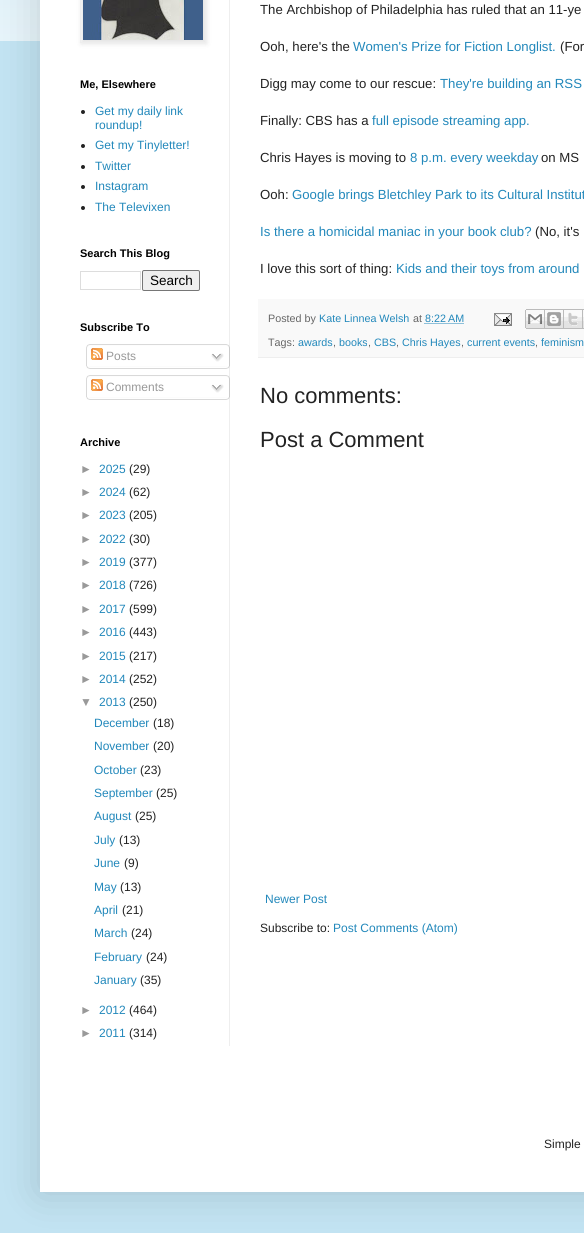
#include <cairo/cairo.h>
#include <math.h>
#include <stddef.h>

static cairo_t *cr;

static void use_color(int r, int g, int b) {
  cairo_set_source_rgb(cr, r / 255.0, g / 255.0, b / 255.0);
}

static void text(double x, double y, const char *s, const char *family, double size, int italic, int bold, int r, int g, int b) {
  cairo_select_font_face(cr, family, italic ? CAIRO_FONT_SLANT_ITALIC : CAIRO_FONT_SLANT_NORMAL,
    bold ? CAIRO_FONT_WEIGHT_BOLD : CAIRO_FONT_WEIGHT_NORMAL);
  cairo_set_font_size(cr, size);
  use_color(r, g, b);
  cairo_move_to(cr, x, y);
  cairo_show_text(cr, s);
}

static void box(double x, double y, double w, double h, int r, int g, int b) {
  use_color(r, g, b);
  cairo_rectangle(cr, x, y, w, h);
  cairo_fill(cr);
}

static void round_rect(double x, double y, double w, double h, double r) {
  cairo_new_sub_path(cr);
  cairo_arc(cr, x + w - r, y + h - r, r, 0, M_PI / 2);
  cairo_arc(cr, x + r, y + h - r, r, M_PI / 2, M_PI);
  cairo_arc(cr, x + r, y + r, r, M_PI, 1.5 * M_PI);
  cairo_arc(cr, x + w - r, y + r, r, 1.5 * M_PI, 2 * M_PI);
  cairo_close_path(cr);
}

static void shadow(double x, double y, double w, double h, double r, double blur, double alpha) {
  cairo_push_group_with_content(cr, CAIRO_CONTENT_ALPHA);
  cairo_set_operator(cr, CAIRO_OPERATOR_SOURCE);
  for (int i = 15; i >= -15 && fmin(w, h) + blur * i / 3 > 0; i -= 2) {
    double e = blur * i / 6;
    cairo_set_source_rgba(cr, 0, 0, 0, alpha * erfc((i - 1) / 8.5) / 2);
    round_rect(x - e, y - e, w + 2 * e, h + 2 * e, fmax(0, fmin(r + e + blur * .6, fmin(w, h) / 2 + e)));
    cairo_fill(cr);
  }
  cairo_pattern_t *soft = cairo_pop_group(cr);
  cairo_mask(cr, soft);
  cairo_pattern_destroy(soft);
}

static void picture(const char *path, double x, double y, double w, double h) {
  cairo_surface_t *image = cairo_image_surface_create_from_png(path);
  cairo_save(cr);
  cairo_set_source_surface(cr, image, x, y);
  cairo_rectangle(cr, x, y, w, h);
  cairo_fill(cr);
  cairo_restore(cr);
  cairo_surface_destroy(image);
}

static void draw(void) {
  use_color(194, 227, 242);
  cairo_paint(cr);
  picture("img_01.png", 0, 0, 40, 41);
  use_color(0, 0, 0);
  shadow(40, -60, 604, 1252, 0, 20, 0.15);
  box(40, 0, 544, 1192, 255, 255, 255);
  box(229, 0, 1, 1046, 238, 238, 238);
  use_color(0, 0, 0);
  shadow(81, -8, 126, 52, 0, 2.5, 0.1);
  cairo_rectangle(cr, 80.5, -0.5, 125, 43);
  use_color(238, 238, 238);
  cairo_set_line_width(cr, 1);
  cairo_stroke(cr);
  picture("img_02.png", 83, 0, 120, 40);
  use_color(34, 34, 34);
  cairo_arc(cr, 83, 112, 2, 0, 2 * M_PI);
  cairo_fill(cr);
  cairo_arc(cr, 83, 146, 2, 0, 2 * M_PI);
  cairo_fill(cr);
  cairo_arc(cr, 83, 167, 2, 0, 2 * M_PI);
  cairo_fill(cr);
  cairo_arc(cr, 83, 187, 2, 0, 2 * M_PI);
  cairo_fill(cr);
  cairo_arc(cr, 83, 208, 2, 0, 2 * M_PI);
  cairo_fill(cr);
  cairo_rectangle(cr, 80.5, 271.5, 60, 18);
  use_color(221, 221, 221);
  cairo_stroke(cr);
  use_color(239, 239, 239);
  round_rect(142.5, 270.5, 57, 20, 1.5);
  cairo_fill_preserve(cr);
  use_color(118, 118, 118);
  cairo_stroke(cr);
  picture("img_03.png", 86, 344, 144, 22);
  picture("img_04.png", 91, 348, 12, 12);
  picture("img_05.png", 211, 353, 13, 9);
  picture("img_06.png", 86, 366, 144, 3);
  picture("img_03.png", 86, 375, 144, 22);
  picture("img_04.png", 91, 379, 12, 12);
  picture("img_05.png", 211, 384, 13, 9);
  picture("img_06.png", 86, 397, 144, 3);
  box(258, 299, 326, 58, 249, 249, 249);
  box(258, 357, 326, 1, 238, 238, 238);
  cairo_new_path(cr);
  cairo_move_to(cr, 424.5, 323.5);
  cairo_line_to(cr, 464, 323.5);
  use_color(34, 136, 187);
  cairo_set_dash(cr, (double[]){1, 1}, 2, 0);
  cairo_stroke(cr);
  picture("img_07.png", 494, 313, 18, 13);
  picture("img_08.png", 525, 309, 20, 20);
  picture("img_09.png", 545, 309, 19, 20);
  picture("img_10.png", 564, 309, 19, 20);
  picture("img_11.png", 583, 309, 1, 20);
  text(80, 88, "Me, Elsewhere", "Liberation Sans", 11, 0, 1, 0, 0, 0);
  text(95, 115, "Get my daily link", "Liberation Sans", 12, 0, 0, 34, 136, 187);
  text(95, 129, "roundup!", "Liberation Sans", 12, 0, 0, 34, 136, 187);
  text(95, 149, "Get my Tinyletter!", "Liberation Sans", 12, 0, 0, 34, 136, 187);
  text(95, 170, "Twitter", "Liberation Sans", 12, 0, 0, 34, 136, 187);
  text(95, 190, "Instagram", "Liberation Sans", 12, 0, 0, 34, 136, 187);
  text(95, 211, "The Televixen", "Liberation Sans", 12, 0, 0, 34, 136, 187);
  text(80, 257, "Search This Blog", "Liberation Sans", 11, 0, 1, 0, 0, 0);
  text(150, 285, "Search", "Liberation Sans", 13.5, 0, 0, 0, 0, 0);
  text(80, 331, "Subscribe To", "Liberation Sans", 11, 0, 1, 0, 0, 0);
  text(106, 360, "Posts", "Liberation Sans", 12, 0, 0, 153, 153, 153);
  text(106, 391, "Comments", "Liberation Sans", 12, 0, 0, 153, 153, 153);
  text(80, 446, "Archive", "Liberation Sans", 11, 0, 1, 0, 0, 0);
  text(80, 473, "►", "Liberation Sans", 12, 0, 0, 153, 153, 153);
  text(99, 473, "2025", "Liberation Sans", 12, 0, 0, 34, 136, 187);
  text(129, 473, "(29)", "Liberation Sans", 12, 0, 0, 34, 34, 34);
  text(80, 496, "►", "Liberation Sans", 12, 0, 0, 153, 153, 153);
  text(99, 496, "2024", "Liberation Sans", 12, 0, 0, 34, 136, 187);
  text(129, 496, "(62)", "Liberation Sans", 12, 0, 0, 34, 34, 34);
  text(80, 519, "►", "Liberation Sans", 12, 0, 0, 153, 153, 153);
  text(99, 519, "2023", "Liberation Sans", 12, 0, 0, 34, 136, 187);
  text(129, 519, "(205)", "Liberation Sans", 12, 0, 0, 34, 34, 34);
  text(80, 543, "►", "Liberation Sans", 12, 0, 0, 153, 153, 153);
  text(99, 543, "2022", "Liberation Sans", 12, 0, 0, 34, 136, 187);
  text(129, 543, "(30)", "Liberation Sans", 12, 0, 0, 34, 34, 34);
  text(80, 566, "►", "Liberation Sans", 12, 0, 0, 153, 153, 153);
  text(99, 566, "2019", "Liberation Sans", 12, 0, 0, 34, 136, 187);
  text(129, 566, "(377)", "Liberation Sans", 12, 0, 0, 34, 34, 34);
  text(80, 589, "►", "Liberation Sans", 12, 0, 0, 153, 153, 153);
  text(99, 589, "2018", "Liberation Sans", 12, 0, 0, 34, 136, 187);
  text(129, 589, "(726)", "Liberation Sans", 12, 0, 0, 34, 34, 34);
  text(80, 613, "►", "Liberation Sans", 12, 0, 0, 153, 153, 153);
  text(99, 613, "2017", "Liberation Sans", 12, 0, 0, 34, 136, 187);
  text(129, 613, "(599)", "Liberation Sans", 12, 0, 0, 34, 34, 34);
  text(80, 636, "►", "Liberation Sans", 12, 0, 0, 153, 153, 153);
  text(99, 636, "2016", "Liberation Sans", 12, 0, 0, 34, 136, 187);
  text(129, 636, "(443)", "Liberation Sans", 12, 0, 0, 34, 34, 34);
  text(80, 660, "►", "Liberation Sans", 12, 0, 0, 153, 153, 153);
  text(99, 660, "2015", "Liberation Sans", 12, 0, 0, 34, 136, 187);
  text(129, 660, "(217)", "Liberation Sans", 12, 0, 0, 34, 34, 34);
  text(80, 683, "►", "Liberation Sans", 12, 0, 0, 153, 153, 153);
  text(99, 683, "2014", "Liberation Sans", 12, 0, 0, 34, 136, 187);
  text(129, 683, "(252)", "Liberation Sans", 12, 0, 0, 34, 34, 34);
  text(80, 706, "▼", "Liberation Sans", 12, 0, 0, 153, 153, 153);
  text(99, 706, "2013", "Liberation Sans", 12, 0, 0, 34, 136, 187);
  text(129, 706, "(250)", "Liberation Sans", 12, 0, 0, 34, 34, 34);
  text(94, 727, "December", "Liberation Sans", 12, 0, 0, 34, 136, 187);
  text(153, 727, "(18)", "Liberation Sans", 12, 0, 0, 34, 34, 34);
  text(94, 750, "November", "Liberation Sans", 12, 0, 0, 34, 136, 187);
  text(153, 750, "(20)", "Liberation Sans", 12, 0, 0, 34, 34, 34);
  text(94, 774, "October", "Liberation Sans", 12, 0, 0, 34, 136, 187);
  text(140, 774, "(23)", "Liberation Sans", 12, 0, 0, 34, 34, 34);
  text(94, 797, "September", "Liberation Sans", 12, 0, 0, 34, 136, 187);
  text(156, 797, "(25)", "Liberation Sans", 12, 0, 0, 34, 34, 34);
  text(94, 820, "August", "Liberation Sans", 12, 0, 0, 34, 136, 187);
  text(135, 820, "(25)", "Liberation Sans", 12, 0, 0, 34, 34, 34);
  text(94, 844, "July", "Liberation Sans", 12, 0, 0, 34, 136, 187);
  text(119, 844, "(13)", "Liberation Sans", 12, 0, 0, 34, 34, 34);
  text(94, 867, "June", "Liberation Sans", 12, 0, 0, 34, 136, 187);
  text(124, 867, "(9)", "Liberation Sans", 12, 0, 0, 34, 34, 34);
  text(94, 891, "May", "Liberation Sans", 12, 0, 0, 34, 136, 187);
  text(120, 891, "(13)", "Liberation Sans", 12, 0, 0, 34, 34, 34);
  text(94, 914, "April", "Liberation Sans", 12, 0, 0, 34, 136, 187);
  text(122, 914, "(21)", "Liberation Sans", 12, 0, 0, 34, 34, 34);
  text(94, 937, "March", "Liberation Sans", 12, 0, 0, 34, 136, 187);
  text(131, 937, "(24)", "Liberation Sans", 12, 0, 0, 34, 34, 34);
  text(94, 961, "February", "Liberation Sans", 12, 0, 0, 34, 136, 187);
  text(146, 961, "(24)", "Liberation Sans", 12, 0, 0, 34, 34, 34);
  text(94, 984, "January", "Liberation Sans", 12, 0, 0, 34, 136, 187);
  text(140, 984, "(35)", "Liberation Sans", 12, 0, 0, 34, 34, 34);
  text(80, 1014, "►", "Liberation Sans", 12, 0, 0, 153, 153, 153);
  text(99, 1014, "2012", "Liberation Sans", 12, 0, 0, 34, 136, 187);
  text(129, 1014, "(464)", "Liberation Sans", 12, 0, 0, 34, 34, 34);
  text(80, 1037, "►", "Liberation Sans", 12, 0, 0, 153, 153, 153);
  text(99, 1037, "2011", "Liberation Sans", 12, 0, 0, 34, 136, 187);
  text(129, 1037, "(314)", "Liberation Sans", 12, 0, 0, 34, 34, 34);
  text(260, 14, "The Archbishop of Philadelphia has ruled that an 11-ye", "Liberation Sans", 13.2, 0, 0, 34, 34, 34);
  text(260, 51, "Ooh, here's the", "Liberation Sans", 13.2, 0, 0, 34, 34, 34);
  text(353, 51, "Women's Prize for Fiction Longlist.", "Liberation Sans", 13.2, 0, 0, 34, 136, 187);
  text(560, 51, "(For", "Liberation Sans", 13.2, 0, 0, 34, 34, 34);
  text(260, 88, "Digg may come to our rescue:", "Liberation Sans", 13.2, 0, 0, 34, 34, 34);
  text(440, 88, "They're building an RSS", "Liberation Sans", 13.2, 0, 0, 34, 136, 187);
  text(260, 125, "Finally: CBS has a", "Liberation Sans", 13.2, 0, 0, 34, 34, 34);
  text(372, 125, "full episode streaming app.", "Liberation Sans", 13.2, 0, 0, 34, 136, 187);
  text(260, 162, "Chris Hayes is moving to", "Liberation Sans", 13.2, 0, 0, 34, 34, 34);
  text(410, 162, "8 p.m. every weekday", "Liberation Sans", 13.2, 0, 0, 34, 136, 187);
  text(541, 162, "on MS", "Liberation Sans", 13.2, 0, 0, 34, 34, 34);
  text(260, 199, "Ooh:", "Liberation Sans", 13.2, 0, 0, 34, 34, 34);
  text(292, 199, "Google brings Bletchley Park to its Cultural Institut", "Liberation Sans", 13.2, 0, 0, 34, 136, 187);
  text(260, 236, "Is there a homicidal maniac in your book club?", "Liberation Sans", 13.2, 0, 0, 34, 136, 187);
  text(535, 236, "(No, it's", "Liberation Sans", 13.2, 0, 0, 34, 34, 34);
  text(260, 273, "I love this sort of thing:", "Liberation Sans", 13.2, 0, 0, 34, 34, 34);
  text(396, 273, "Kids and their toys from around", "Liberation Sans", 13.2, 0, 0, 34, 136, 187);
  text(268, 322, "Posted by", "Liberation Sans", 10.75, 0, 0, 102, 102, 102);
  text(319, 322, "Kate Linnea Welsh", "Liberation Sans", 10.75, 0, 0, 34, 136, 187);
  text(413, 322, "at", "Liberation Sans", 10.75, 0, 0, 102, 102, 102);
  text(425, 322, "8:22 AM", "Liberation Sans", 10.75, 0, 0, 34, 136, 187);
  text(268, 346, "Tags:", "Liberation Sans", 10.75, 0, 0, 102, 102, 102);
  text(298, 346, "awards", "Liberation Sans", 10.75, 0, 0, 34, 136, 187);
  text(333, 346, ",", "Liberation Sans", 10.75, 0, 0, 102, 102, 102);
  text(339, 346, "books", "Liberation Sans", 10.75, 0, 0, 34, 136, 187);
  text(368, 346, ",", "Liberation Sans", 10.75, 0, 0, 102, 102, 102);
  text(374, 346, "CBS", "Liberation Sans", 10.75, 0, 0, 34, 136, 187);
  text(396, 346, ",", "Liberation Sans", 10.75, 0, 0, 102, 102, 102);
  text(402, 346, "Chris Hayes", "Liberation Sans", 10.75, 0, 0, 34, 136, 187);
  text(461, 346, ",", "Liberation Sans", 10.75, 0, 0, 102, 102, 102);
  text(467, 346, "current events", "Liberation Sans", 10.75, 0, 0, 34, 136, 187);
  text(535, 346, ",", "Liberation Sans", 10.75, 0, 0, 102, 102, 102);
  text(541, 346, "feminism", "Liberation Sans", 10.75, 0, 0, 34, 136, 187);
  text(260, 403, "No comments:", "Liberation Sans", 22, 0, 0, 34, 34, 34);
  text(260, 447, "Post a Comment", "Liberation Sans", 22, 0, 0, 34, 34, 34);
  text(265, 903, "Newer Post", "Liberation Sans", 12, 0, 0, 34, 136, 187);
  text(260, 932, "Subscribe to:", "Liberation Sans", 12, 0, 0, 34, 34, 34);
  text(333, 932, "Post Comments (Atom)", "Liberation Sans", 12, 0, 0, 34, 136, 187);
  text(544, 1148, "Simple", "Liberation Sans", 12, 0, 0, 34, 34, 34);
}

int main(void) {
  cairo_surface_t *surface = cairo_image_surface_create(CAIRO_FORMAT_RGB24, 584, 1233);
  cr = cairo_create(surface);
  cairo_font_options_t *options = cairo_font_options_create();
  cairo_font_options_set_hint_metrics(options, CAIRO_HINT_METRICS_OFF);
  cairo_font_options_set_hint_style(options, CAIRO_HINT_STYLE_NONE);
  cairo_set_font_options(cr, options);
  cairo_set_miter_limit(cr, 4);
  draw();
  cairo_surface_write_to_png(surface, "out.png");
  cairo_font_options_destroy(options);
  cairo_destroy(cr);
  cairo_surface_destroy(surface);
  return 0;
}
